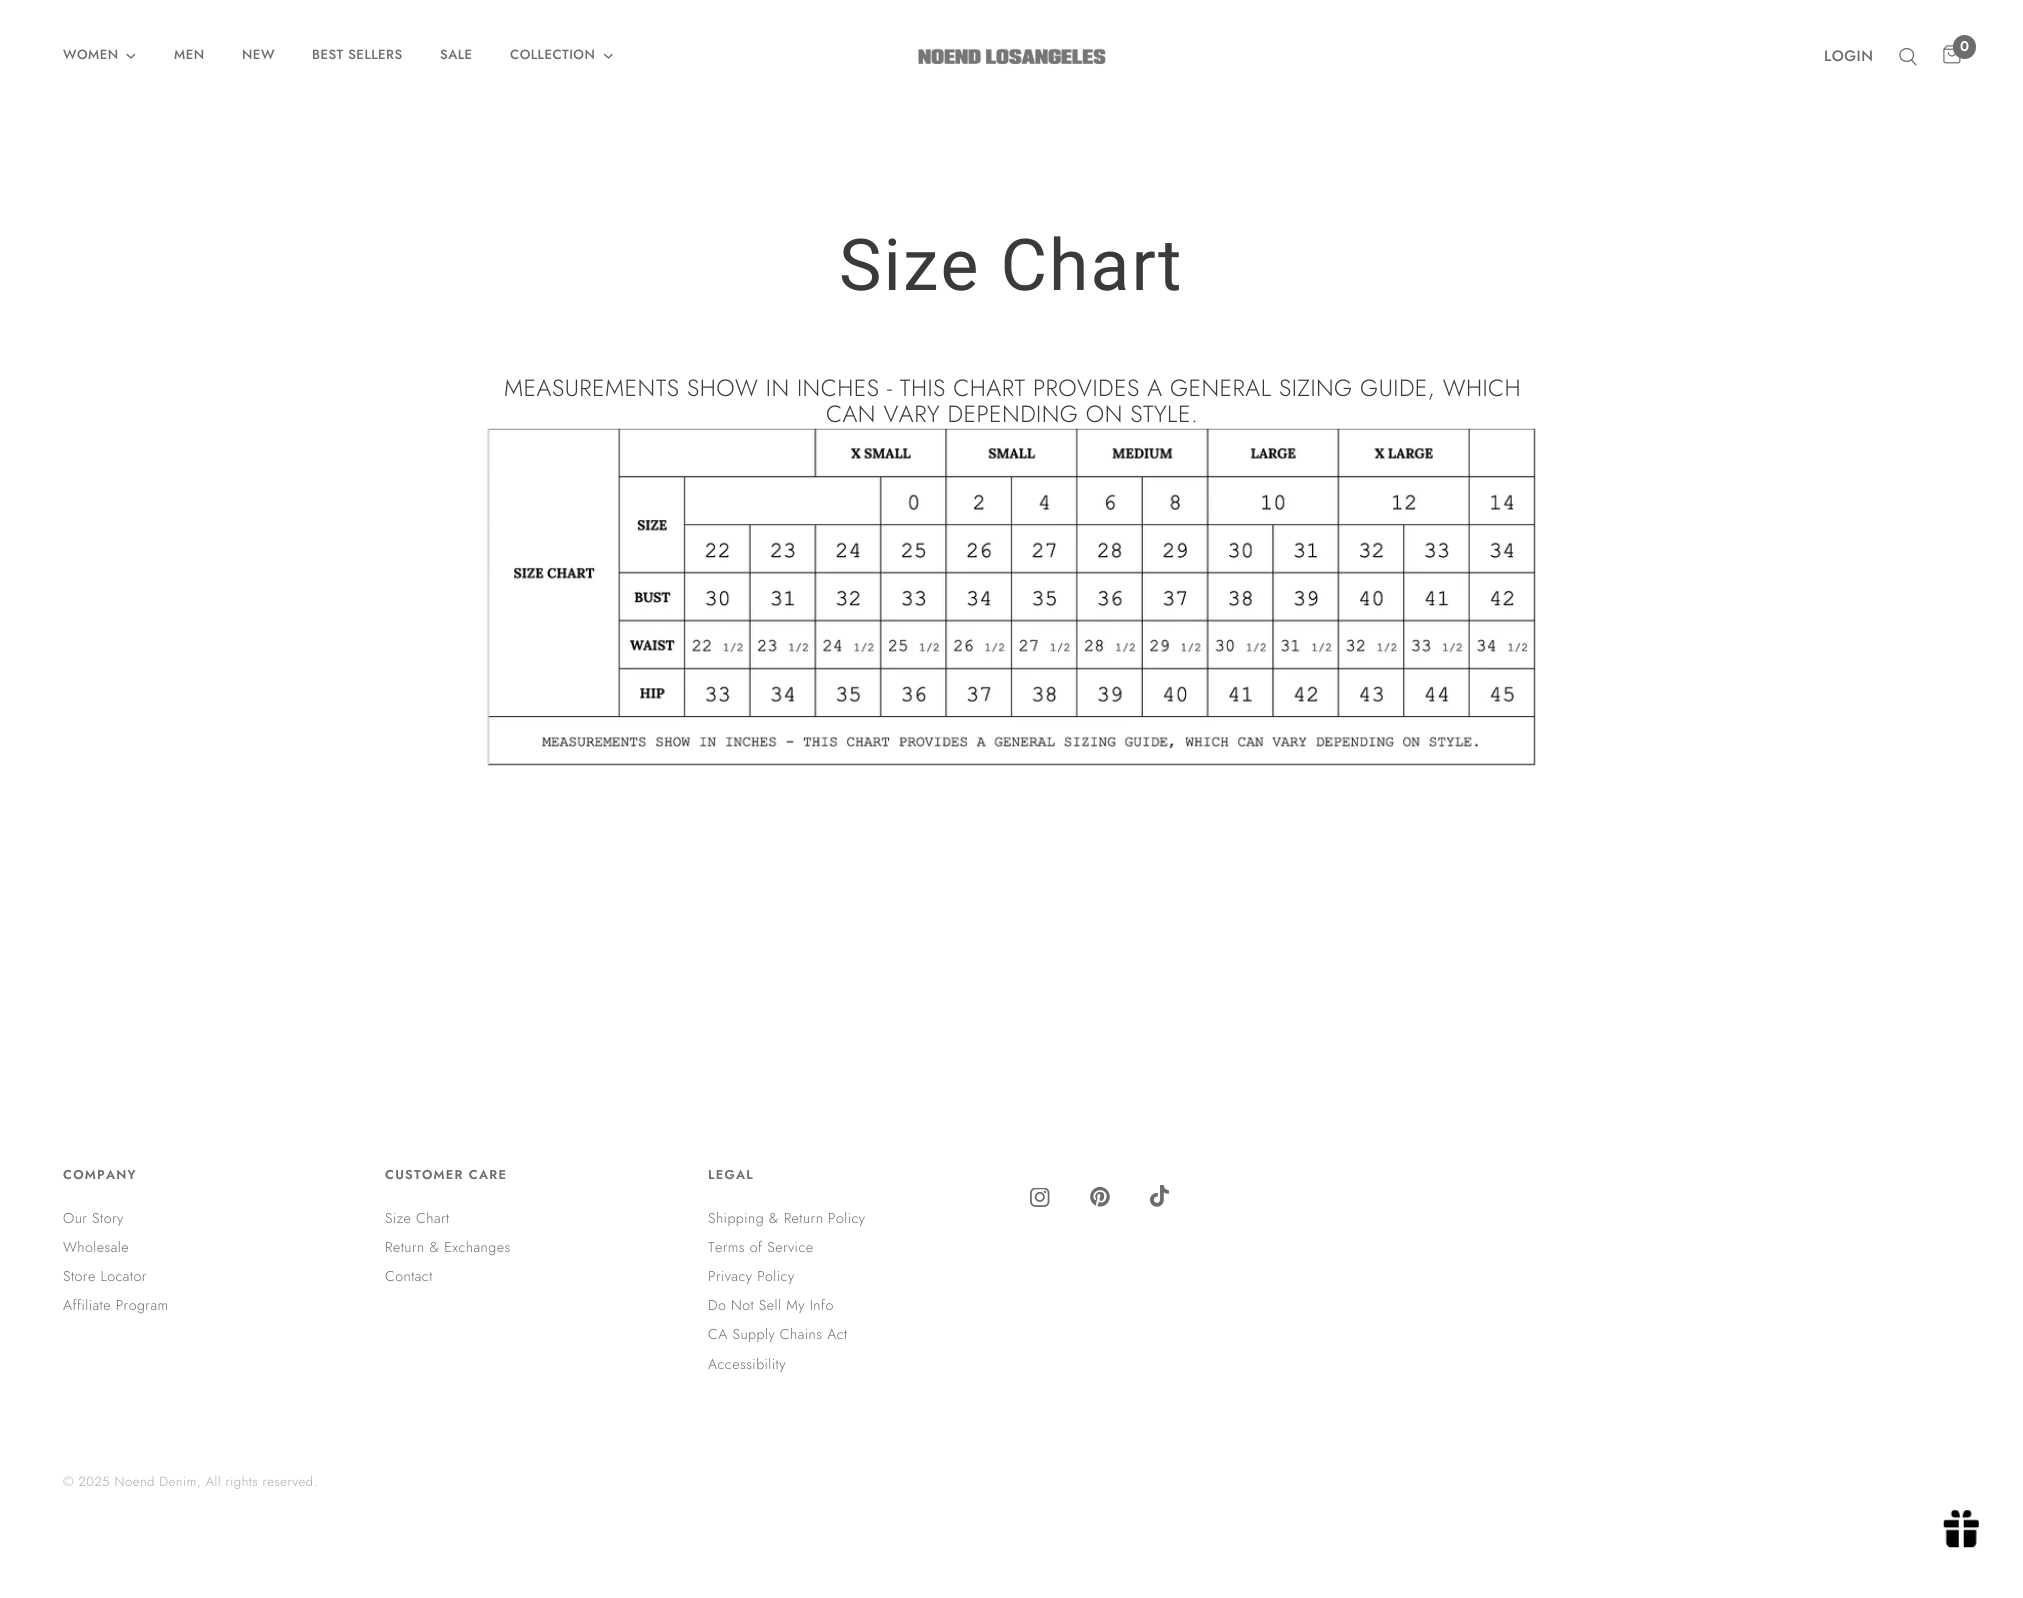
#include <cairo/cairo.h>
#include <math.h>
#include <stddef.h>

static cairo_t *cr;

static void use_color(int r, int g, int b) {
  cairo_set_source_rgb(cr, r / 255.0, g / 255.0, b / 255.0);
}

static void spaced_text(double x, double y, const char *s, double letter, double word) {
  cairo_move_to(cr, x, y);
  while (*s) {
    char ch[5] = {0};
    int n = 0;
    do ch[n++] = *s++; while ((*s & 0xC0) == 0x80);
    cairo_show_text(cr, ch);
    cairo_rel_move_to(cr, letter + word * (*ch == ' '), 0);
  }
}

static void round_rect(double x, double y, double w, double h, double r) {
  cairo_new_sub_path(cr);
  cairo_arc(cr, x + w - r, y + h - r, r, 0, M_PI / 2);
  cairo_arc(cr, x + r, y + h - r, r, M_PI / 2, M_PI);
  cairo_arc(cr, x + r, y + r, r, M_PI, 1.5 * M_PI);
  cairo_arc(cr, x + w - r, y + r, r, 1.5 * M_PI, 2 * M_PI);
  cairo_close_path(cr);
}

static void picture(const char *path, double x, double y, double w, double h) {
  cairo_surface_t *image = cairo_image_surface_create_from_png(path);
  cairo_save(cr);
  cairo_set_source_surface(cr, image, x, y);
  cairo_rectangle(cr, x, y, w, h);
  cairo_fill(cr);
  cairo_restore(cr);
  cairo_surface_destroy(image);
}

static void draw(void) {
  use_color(255, 255, 255);
  cairo_paint(cr);
  cairo_new_path(cr);
  cairo_move_to(cr, 134.5, 54.5);
  cairo_line_to(cr, 131, 58);
  cairo_line_to(cr, 127, 54.5);
  use_color(108, 108, 108);
  cairo_set_line_width(cr, 1.4);
  cairo_set_line_cap(cr, CAIRO_LINE_CAP_ROUND);
  cairo_set_line_join(cr, CAIRO_LINE_JOIN_ROUND);
  cairo_stroke(cr);
  cairo_new_path(cr);
  cairo_move_to(cr, 612, 54.5);
  cairo_line_to(cr, 608.5, 58);
  cairo_line_to(cr, 604.5, 54.5);
  cairo_stroke(cr);
  picture("img_01.png", 918, 48, 188, 17);
  picture("img_02.png", 1943, 45, 18, 19);
  round_rect(1953, 35, 23, 24, 11.5);
  cairo_fill(cr);
  cairo_new_path(cr);
  cairo_move_to(cr, 1911.5, 60);
  cairo_line_to(cr, 1916, 65);
  cairo_move_to(cr, 1913.5, 55);
  cairo_curve_to(cr, 1913.5, 63.5, 1900, 63.5, 1900, 55);
  cairo_curve_to(cr, 1900, 46.5, 1913.5, 46.5, 1913.5, 55);
  cairo_close_path(cr);
  cairo_set_line_width(cr, 1.3);
  cairo_stroke(cr);
  picture("img_03.png", 487, 428, 1049, 339);
  picture("img_04.png", 1030, 1188, 20, 19);
  picture("img_05.png", 1090, 1186, 20, 21);
  picture("img_06.png", 1150, 1185, 19, 22);
  picture("img_07.png", 1943, 1510, 36, 38);
  cairo_select_font_face(cr, "Jost Medium", CAIRO_FONT_SLANT_NORMAL, CAIRO_FONT_WEIGHT_NORMAL);
  cairo_set_font_size(cr, 13.25);
  spaced_text(63, 59, "WOMEN", 0.47, 0);
  spaced_text(174, 59, "MEN", 0.47, 0);
  spaced_text(242, 59, "NEW", 0.47, 0);
  spaced_text(312, 59, "BEST SELLERS", 0.47, 0);
  spaced_text(440, 59, "SALE", 0.47, 0);
  spaced_text(510, 59, "COLLECTION", 0.47, 0);
  cairo_select_font_face(cr, "Jost SemiBold", CAIRO_FONT_SLANT_NORMAL, CAIRO_FONT_WEIGHT_NORMAL);
  cairo_set_font_size(cr, 14);
  use_color(255, 255, 255);
  spaced_text(1960, 51, "0", 0.47, 0);
  cairo_select_font_face(cr, "Jost Medium", CAIRO_FONT_SLANT_NORMAL, CAIRO_FONT_WEIGHT_NORMAL);
  cairo_set_font_size(cr, 15);
  use_color(108, 108, 108);
  spaced_text(1824, 61, "LOGIN", 0.47, 0);
  cairo_select_font_face(cr, "Roboto", CAIRO_FONT_SLANT_NORMAL, CAIRO_FONT_WEIGHT_NORMAL);
  cairo_set_font_size(cr, 71.5);
  use_color(61, 57, 57);
  spaced_text(839, 290, "Size Chart", 2.1, 0);
  cairo_select_font_face(cr, "Jost Light", CAIRO_FONT_SLANT_NORMAL, CAIRO_FONT_WEIGHT_NORMAL);
  cairo_set_font_size(cr, 23.4);
  spaced_text(504, 396, "MEASUREMENTS SHOW IN INCHES - THIS CHART PROVIDES A GENERAL SIZING GUIDE, WHICH", 0.47, 0);
  spaced_text(826, 422, "CAN VARY DEPENDING ON STYLE.", 0.47, 0);
  cairo_select_font_face(cr, "Jost SemiBold", CAIRO_FONT_SLANT_NORMAL, CAIRO_FONT_WEIGHT_NORMAL);
  cairo_set_font_size(cr, 12.75);
  use_color(108, 108, 108);
  spaced_text(63, 1179, "COMPANY", 1.25, 0);
  cairo_select_font_face(cr, "Jost Light", CAIRO_FONT_SLANT_NORMAL, CAIRO_FONT_WEIGHT_NORMAL);
  cairo_set_font_size(cr, 14.25);
  spaced_text(63, 1223, "Our Story", 0.47, 0);
  spaced_text(63, 1252, "Wholesale", 0.47, 0);
  spaced_text(63, 1281, "Store Locator", 0.47, 0);
  spaced_text(63, 1310, "Affiliate Program", 0.47, 0);
  cairo_select_font_face(cr, "Jost SemiBold", CAIRO_FONT_SLANT_NORMAL, CAIRO_FONT_WEIGHT_NORMAL);
  cairo_set_font_size(cr, 12.75);
  spaced_text(385, 1179, "CUSTOMER CARE", 1.25, 0);
  cairo_select_font_face(cr, "Jost Light", CAIRO_FONT_SLANT_NORMAL, CAIRO_FONT_WEIGHT_NORMAL);
  cairo_set_font_size(cr, 14.25);
  spaced_text(385, 1223, "Size Chart", 0.47, 0);
  spaced_text(385, 1252, "Return & Exchanges", 0.47, 0);
  spaced_text(385, 1281, "Contact", 0.47, 0);
  cairo_select_font_face(cr, "Jost SemiBold", CAIRO_FONT_SLANT_NORMAL, CAIRO_FONT_WEIGHT_NORMAL);
  cairo_set_font_size(cr, 12.75);
  spaced_text(708, 1179, "LEGAL", 1.25, 0);
  cairo_select_font_face(cr, "Jost Light", CAIRO_FONT_SLANT_NORMAL, CAIRO_FONT_WEIGHT_NORMAL);
  cairo_set_font_size(cr, 14.25);
  spaced_text(708, 1223, "Shipping & Return Policy", 0.47, 0);
  spaced_text(708, 1252, "Terms of Service", 0.47, 0);
  spaced_text(708, 1281, "Privacy Policy", 0.47, 0);
  spaced_text(708, 1310, "Do Not Sell My Info", 0.47, 0);
  spaced_text(708, 1339, "CA Supply Chains Act", 0.47, 0);
  spaced_text(708, 1369, "Accessibility", 0.47, 0);
  cairo_set_font_size(cr, 13.25);
  use_color(167, 167, 167);
  spaced_text(63, 1486, "© 2025 Noend Denim, All rights reserved.", 0.47, 0);
}

int main(void) {
  cairo_surface_t *surface = cairo_image_surface_create(CAIRO_FORMAT_RGB24, 2023, 1598);
  cr = cairo_create(surface);
  cairo_font_options_t *options = cairo_font_options_create();
  cairo_font_options_set_hint_metrics(options, CAIRO_HINT_METRICS_OFF);
  cairo_font_options_set_hint_style(options, CAIRO_HINT_STYLE_NONE);
  cairo_set_font_options(cr, options);
  cairo_set_miter_limit(cr, 4);
  draw();
  cairo_surface_write_to_png(surface, "out.png");
  cairo_font_options_destroy(options);
  cairo_destroy(cr);
  cairo_surface_destroy(surface);
  return 0;
}
